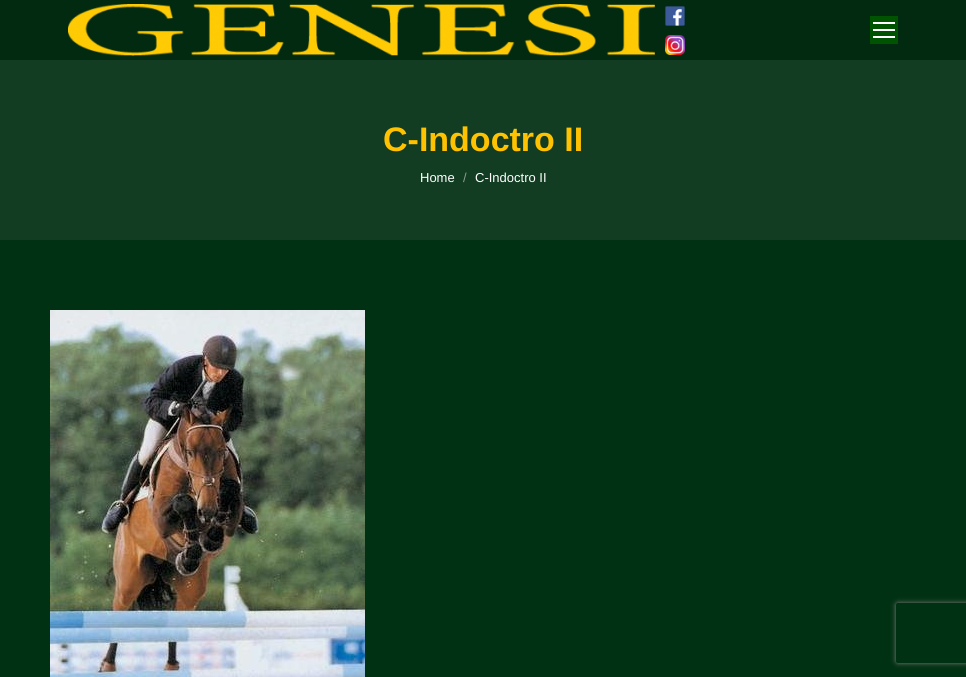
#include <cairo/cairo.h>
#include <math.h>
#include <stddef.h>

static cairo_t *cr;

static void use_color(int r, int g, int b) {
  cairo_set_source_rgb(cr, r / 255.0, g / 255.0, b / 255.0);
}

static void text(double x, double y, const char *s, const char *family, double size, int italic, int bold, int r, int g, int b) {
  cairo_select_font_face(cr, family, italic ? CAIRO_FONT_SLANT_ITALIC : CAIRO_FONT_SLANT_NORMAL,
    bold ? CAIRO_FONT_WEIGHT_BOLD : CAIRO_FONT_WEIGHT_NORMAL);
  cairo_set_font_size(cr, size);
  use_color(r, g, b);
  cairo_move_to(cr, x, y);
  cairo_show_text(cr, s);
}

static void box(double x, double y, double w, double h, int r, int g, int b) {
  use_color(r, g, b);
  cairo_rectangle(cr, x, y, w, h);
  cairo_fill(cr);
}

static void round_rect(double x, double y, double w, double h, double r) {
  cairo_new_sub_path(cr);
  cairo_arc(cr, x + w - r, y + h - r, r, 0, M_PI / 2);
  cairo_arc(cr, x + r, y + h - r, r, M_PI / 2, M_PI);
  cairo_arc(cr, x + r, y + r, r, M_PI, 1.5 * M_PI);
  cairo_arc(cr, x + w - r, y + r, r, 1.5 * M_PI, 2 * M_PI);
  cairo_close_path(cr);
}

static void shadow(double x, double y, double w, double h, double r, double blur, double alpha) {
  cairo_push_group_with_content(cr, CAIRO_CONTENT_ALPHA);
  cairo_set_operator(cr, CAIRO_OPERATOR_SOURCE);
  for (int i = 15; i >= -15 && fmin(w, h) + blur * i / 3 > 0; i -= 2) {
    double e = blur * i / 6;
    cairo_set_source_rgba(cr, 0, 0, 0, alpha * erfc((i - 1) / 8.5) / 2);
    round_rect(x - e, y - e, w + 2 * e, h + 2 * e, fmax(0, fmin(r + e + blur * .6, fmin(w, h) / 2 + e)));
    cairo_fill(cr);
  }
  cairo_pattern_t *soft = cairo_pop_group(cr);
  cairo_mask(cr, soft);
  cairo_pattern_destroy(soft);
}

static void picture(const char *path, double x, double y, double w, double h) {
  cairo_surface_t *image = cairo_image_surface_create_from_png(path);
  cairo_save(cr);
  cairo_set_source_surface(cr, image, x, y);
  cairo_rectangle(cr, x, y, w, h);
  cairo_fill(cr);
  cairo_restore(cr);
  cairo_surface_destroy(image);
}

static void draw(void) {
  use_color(1, 49, 19);
  cairo_paint(cr);
  box(0, 0, 966, 60, 1, 42, 16);
  picture("img_01.png", 68, 4, 587, 52);
  picture("img_02.png", 665, 6, 20, 20);
  picture("img_03.png", 665, 35, 20, 20);
  box(870, 16, 28, 28, 0, 83, 0);
  box(873, 22, 22, 2, 255, 255, 255);
  box(873, 29, 22, 2, 255, 255, 255);
  box(873, 36, 22, 2, 255, 255, 255);
  box(0, 60, 966, 180, 18, 61, 34);
  picture("img_04.png", 50, 310, 315, 367);
  cairo_save(cr);
  cairo_set_fill_rule(cr, CAIRO_FILL_RULE_EVEN_ODD);
  cairo_new_path(cr);
  cairo_move_to(cr, 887, 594);
  cairo_line_to(cr, 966, 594);
  cairo_line_to(cr, 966, 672);
  cairo_line_to(cr, 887, 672);
  cairo_close_path(cr);
  cairo_move_to(cr, 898, 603);
  cairo_line_to(cr, 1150, 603);
  cairo_curve_to(cr, 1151, 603, 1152, 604, 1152, 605);
  cairo_line_to(cr, 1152, 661);
  cairo_curve_to(cr, 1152, 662, 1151, 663, 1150, 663);
  cairo_line_to(cr, 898, 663);
  cairo_curve_to(cr, 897, 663, 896, 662, 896, 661);
  cairo_line_to(cr, 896, 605);
  cairo_curve_to(cr, 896, 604, 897, 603, 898, 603);
  cairo_close_path(cr);
  cairo_clip(cr);
  use_color(128, 128, 128);
  shadow(896, 603, 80, 60, 2, 2.5, 1);
  cairo_restore(cr);
  text(383, 151, "C-Indoctro II", "Liberation Sans", 34, 0, 1, 255, 194, 0);
  text(420, 182, "Home", "Liberation Sans", 13, 0, 0, 255, 255, 255);
  text(463, 182, "/", "Liberation Sans", 13, 0, 0, 137, 158, 145);
  text(475, 182, "C-Indoctro II", "Liberation Sans", 13, 0, 0, 255, 255, 255);
}

int main(void) {
  cairo_surface_t *surface = cairo_image_surface_create(CAIRO_FORMAT_RGB24, 966, 677);
  cr = cairo_create(surface);
  cairo_font_options_t *options = cairo_font_options_create();
  cairo_font_options_set_hint_metrics(options, CAIRO_HINT_METRICS_OFF);
  cairo_font_options_set_hint_style(options, CAIRO_HINT_STYLE_NONE);
  cairo_set_font_options(cr, options);
  cairo_set_miter_limit(cr, 4);
  draw();
  cairo_surface_write_to_png(surface, "out.png");
  cairo_font_options_destroy(options);
  cairo_destroy(cr);
  cairo_surface_destroy(surface);
  return 0;
}
